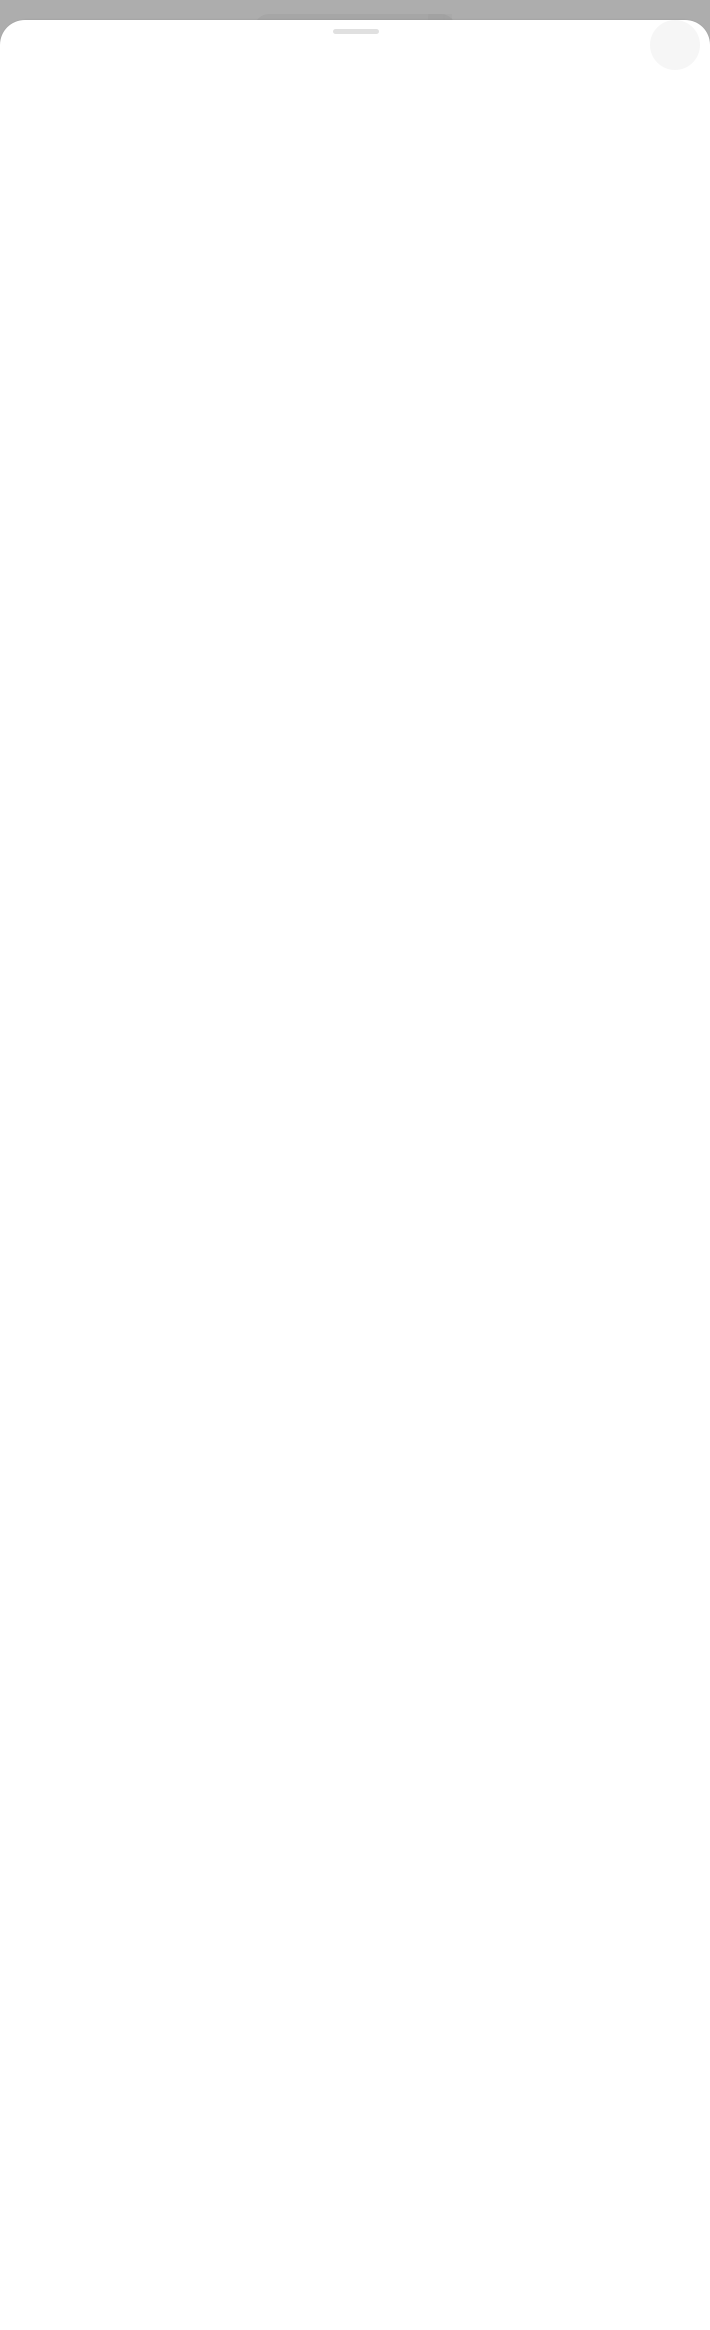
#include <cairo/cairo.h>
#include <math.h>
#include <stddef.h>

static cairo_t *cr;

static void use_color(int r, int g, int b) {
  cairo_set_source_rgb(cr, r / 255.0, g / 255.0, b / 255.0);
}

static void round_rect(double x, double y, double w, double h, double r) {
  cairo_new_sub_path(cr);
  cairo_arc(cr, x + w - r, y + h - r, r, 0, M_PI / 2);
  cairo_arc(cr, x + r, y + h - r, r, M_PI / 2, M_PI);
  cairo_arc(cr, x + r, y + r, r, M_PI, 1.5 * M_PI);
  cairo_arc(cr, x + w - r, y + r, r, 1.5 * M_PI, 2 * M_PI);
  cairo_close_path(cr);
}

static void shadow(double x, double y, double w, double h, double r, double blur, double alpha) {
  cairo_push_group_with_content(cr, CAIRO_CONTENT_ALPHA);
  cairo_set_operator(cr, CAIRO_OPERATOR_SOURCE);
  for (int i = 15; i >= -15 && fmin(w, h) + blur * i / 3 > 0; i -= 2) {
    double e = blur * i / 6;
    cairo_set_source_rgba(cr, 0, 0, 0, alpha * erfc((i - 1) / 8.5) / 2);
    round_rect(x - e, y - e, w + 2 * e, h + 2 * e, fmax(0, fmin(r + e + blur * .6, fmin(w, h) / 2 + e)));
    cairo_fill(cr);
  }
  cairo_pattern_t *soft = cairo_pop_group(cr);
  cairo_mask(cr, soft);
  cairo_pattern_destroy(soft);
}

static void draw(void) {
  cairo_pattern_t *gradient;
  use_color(173, 173, 173);
  cairo_paint(cr);
  use_color(166, 166, 166);
  round_rect(254, 14, 202, 55, 15);
  cairo_fill(cr);
  gradient = cairo_pattern_create_linear(254, 10, 658, 72);
  cairo_pattern_add_color_stop_rgba(gradient, 0.23, 0.075, 0.075, 0.075, 0);
  cairo_pattern_add_color_stop_rgba(gradient, 0.5, 0.075, 0.075, 0.075, 0.03);
  cairo_pattern_add_color_stop_rgba(gradient, 0.77, 0.075, 0.075, 0.075, 0);
  cairo_set_source(cr, gradient);
  cairo_pattern_destroy(gradient);
  cairo_rectangle(cr, 428, 14, 24, 6);
  cairo_fill(cr);
  use_color(0, 0, 0);
  shadow(0, 20, 710, 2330, 25, 1, 0.12);
  use_color(255, 255, 255);
  cairo_new_path(cr);
  cairo_move_to(cr, 25, 20);
  cairo_line_to(cr, 685, 20);
  cairo_curve_to(cr, 699, 20, 710, 31, 710, 45);
  cairo_line_to(cr, 710, 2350);
  cairo_line_to(cr, 0, 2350);
  cairo_line_to(cr, 0, 45);
  cairo_curve_to(cr, 0, 31, 11, 20, 25, 20);
  cairo_close_path(cr);
  cairo_fill(cr);
  use_color(224, 224, 224);
  round_rect(333, 29, 46, 5, 2.5);
  cairo_fill(cr);
  use_color(246, 246, 246);
  cairo_arc(cr, 675, 45, 25, 0, 2 * M_PI);
  cairo_fill(cr);
}

int main(void) {
  cairo_surface_t *surface = cairo_image_surface_create(CAIRO_FORMAT_RGB24, 710, 2330);
  cr = cairo_create(surface);
  cairo_font_options_t *options = cairo_font_options_create();
  cairo_font_options_set_hint_metrics(options, CAIRO_HINT_METRICS_OFF);
  cairo_font_options_set_hint_style(options, CAIRO_HINT_STYLE_NONE);
  cairo_set_font_options(cr, options);
  cairo_set_miter_limit(cr, 4);
  draw();
  cairo_surface_write_to_png(surface, "out.png");
  cairo_font_options_destroy(options);
  cairo_destroy(cr);
  cairo_surface_destroy(surface);
  return 0;
}
